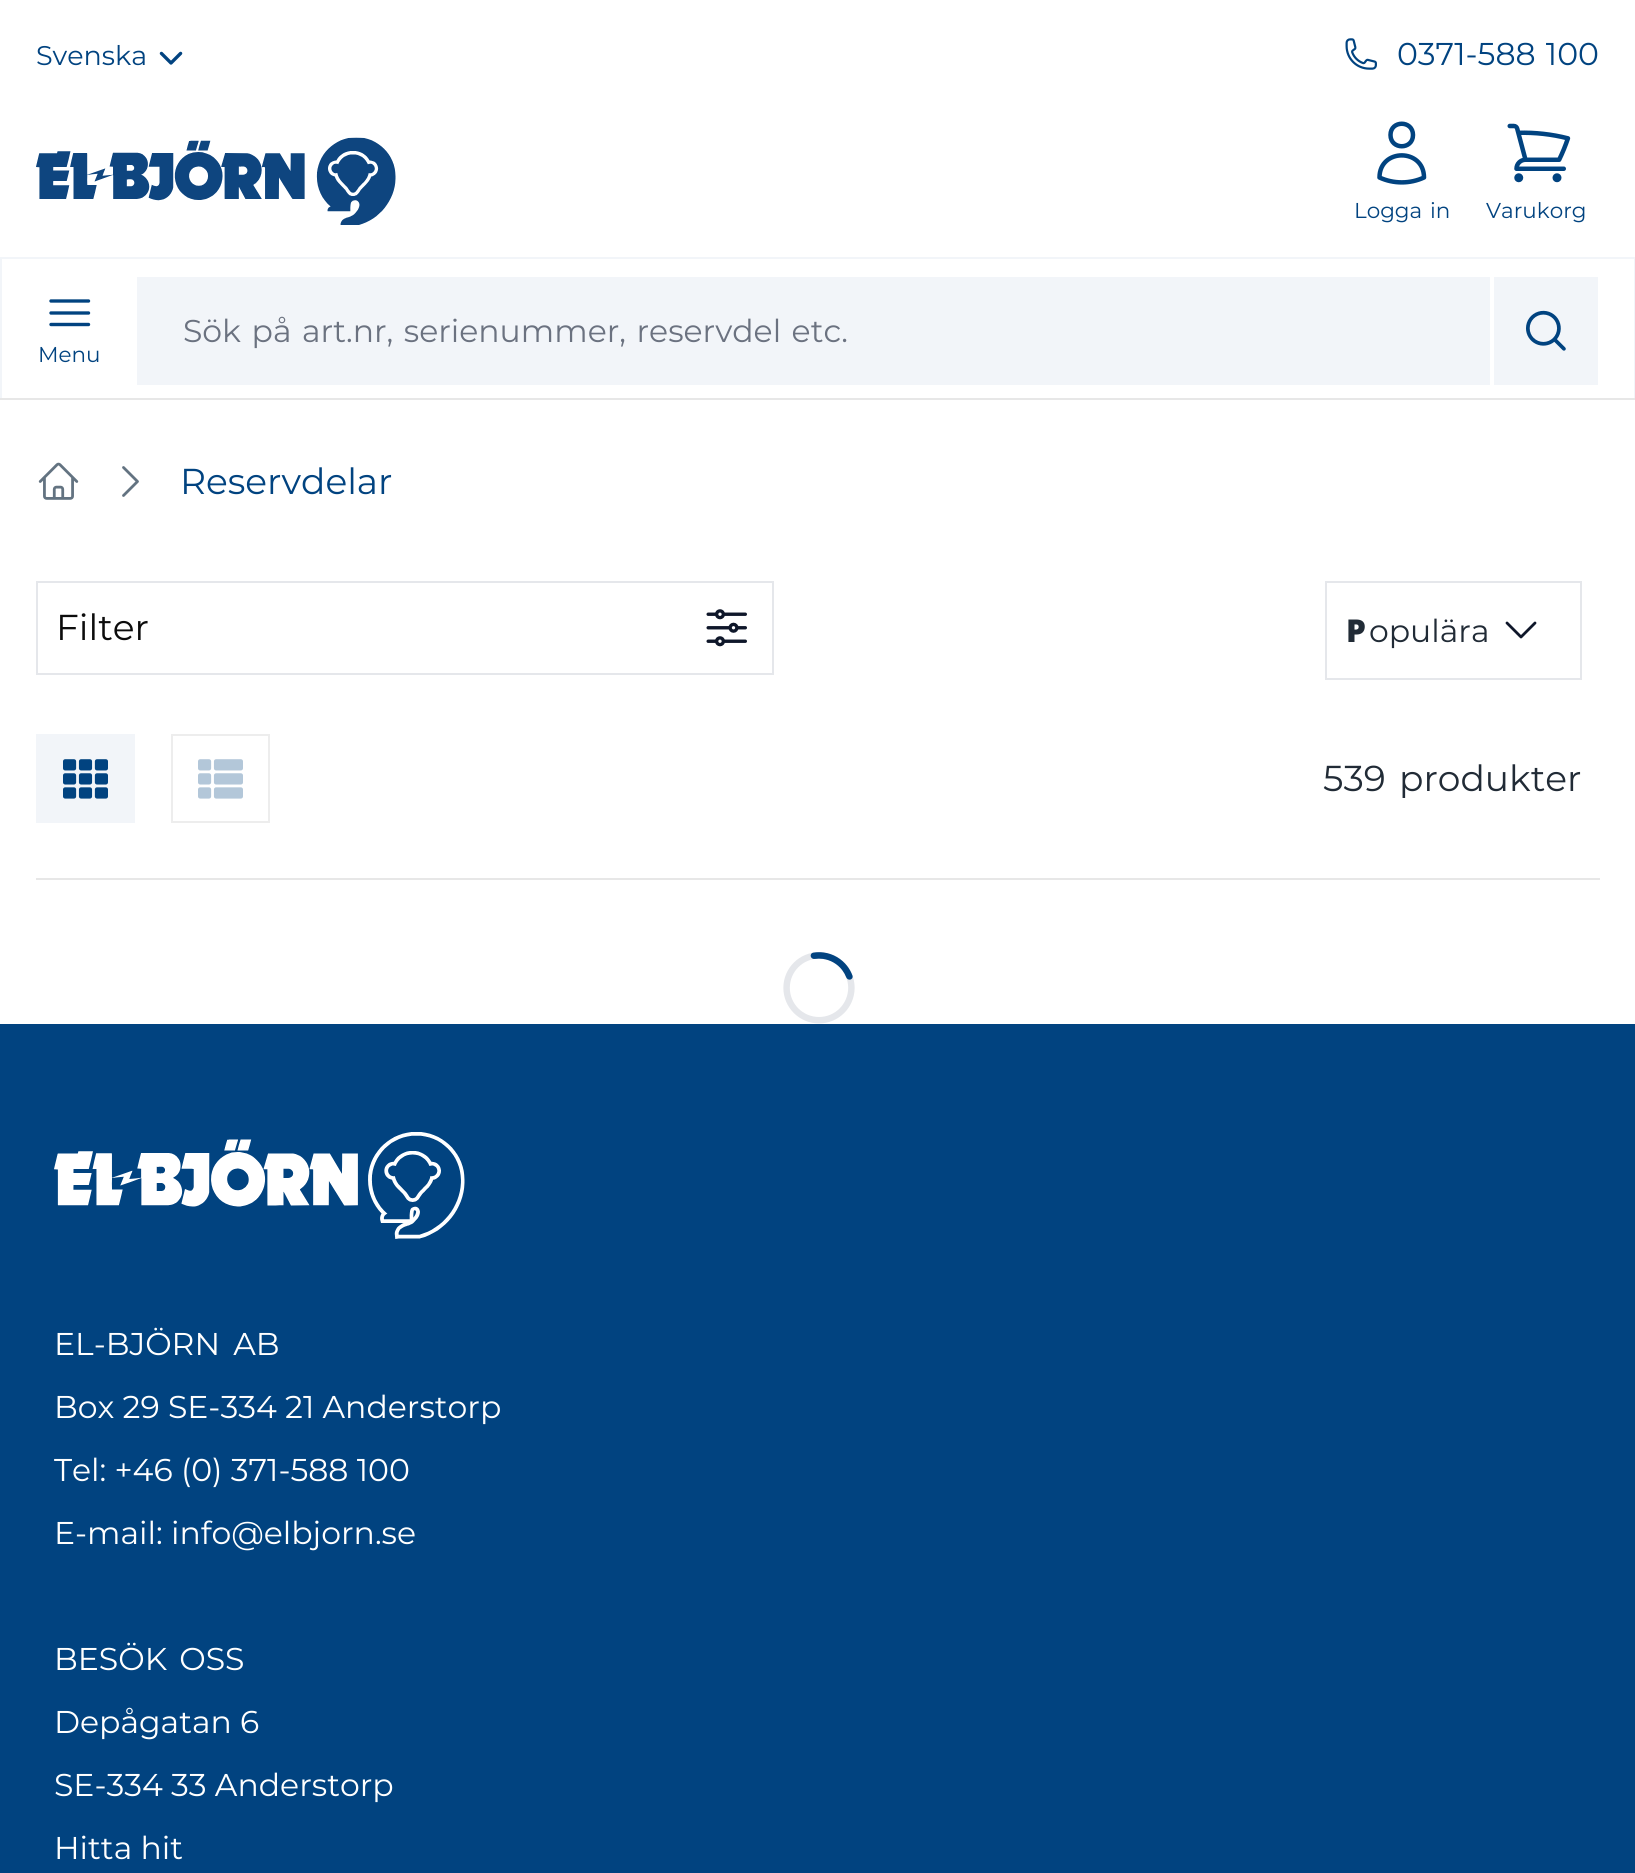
#include <cairo/cairo.h>
#include <math.h>
#include <stddef.h>

static cairo_t *cr;

static void use_color(int r, int g, int b) {
  cairo_set_source_rgb(cr, r / 255.0, g / 255.0, b / 255.0);
}

static void text(double x, double y, const char *s, const char *family, double size, int italic, int bold, int r, int g, int b) {
  cairo_select_font_face(cr, family, italic ? CAIRO_FONT_SLANT_ITALIC : CAIRO_FONT_SLANT_NORMAL,
    bold ? CAIRO_FONT_WEIGHT_BOLD : CAIRO_FONT_WEIGHT_NORMAL);
  cairo_set_font_size(cr, size);
  use_color(r, g, b);
  cairo_move_to(cr, x, y);
  cairo_show_text(cr, s);
}

static void spaced_text(double x, double y, const char *s, double letter, double word) {
  cairo_move_to(cr, x, y);
  while (*s) {
    char ch[5] = {0};
    int n = 0;
    do ch[n++] = *s++; while ((*s & 0xC0) == 0x80);
    cairo_show_text(cr, ch);
    cairo_rel_move_to(cr, letter + word * (*ch == ' '), 0);
  }
}

static void box(double x, double y, double w, double h, int r, int g, int b) {
  use_color(r, g, b);
  cairo_rectangle(cr, x, y, w, h);
  cairo_fill(cr);
}

static void picture(const char *path, double x, double y, double w, double h) {
  cairo_surface_t *image = cairo_image_surface_create_from_png(path);
  cairo_save(cr);
  cairo_set_source_surface(cr, image, x, y);
  cairo_rectangle(cr, x, y, w, h);
  cairo_fill(cr);
  cairo_restore(cr);
  cairo_surface_destroy(image);
}

static void draw(void) {
  use_color(255, 255, 255);
  cairo_paint(cr);
  picture("img_01.png", 159, 51, 24, 14);
  picture("img_02.png", 1345, 38, 32, 32);
  box(0, 398, 1635, 2, 231, 231, 231);
  picture("img_03.png", 36, 137, 360, 88);
  cairo_new_path(cr);
  cairo_move_to(cr, 1413, 135);
  cairo_curve_to(cr, 1413, 150, 1390.5, 150, 1390.5, 135);
  cairo_curve_to(cr, 1390.5, 120, 1413, 120, 1413, 135);
  cairo_close_path(cr);
  cairo_move_to(cr, 1379.5, 177.5);
  cairo_curve_to(cr, 1379.5, 148, 1424, 148, 1424, 177.5);
  cairo_curve_to(cr, 1410, 184, 1393.5, 184, 1379.5, 177.5);
  cairo_close_path(cr);
  use_color(1, 67, 128);
  cairo_set_line_width(cr, 4.5);
  cairo_set_line_cap(cr, CAIRO_LINE_CAP_ROUND);
  cairo_set_line_join(cr, CAIRO_LINE_JOIN_ROUND);
  cairo_stroke(cr);
  picture("img_04.png", 1507, 123, 64, 60);
  box(0, 257, 1635, 2, 242, 245, 249);
  box(1634, 257, 1, 141, 242, 245, 249);
  box(0, 257, 2, 141, 242, 245, 249);
  box(137, 277, 1353, 108, 242, 245, 249);
  box(1494, 277, 104, 108, 242, 245, 249);
  picture("img_05.png", 1526, 310, 40, 41);
  cairo_new_path(cr);
  cairo_move_to(cr, 51, 301);
  cairo_line_to(cr, 88.5, 301);
  cairo_move_to(cr, 51, 313);
  cairo_line_to(cr, 88.5, 313);
  cairo_move_to(cr, 51, 324.5);
  cairo_line_to(cr, 88.5, 324.5);
  use_color(1, 67, 128);
  cairo_set_line_width(cr, 3.4);
  cairo_stroke(cr);
  picture("img_06.png", 38, 462, 41, 38);
  cairo_new_path(cr);
  cairo_move_to(cr, 123.5, 467.5);
  cairo_line_to(cr, 137.5, 481.5);
  cairo_line_to(cr, 123.5, 495.5);
  use_color(99, 115, 129);
  cairo_set_line_width(cr, 2.8);
  cairo_stroke(cr);
  cairo_rectangle(cr, 37, 582, 736, 92);
  use_color(229, 231, 235);
  cairo_set_line_width(cr, 2);
  cairo_set_line_cap(cr, CAIRO_LINE_CAP_BUTT);
  cairo_set_line_join(cr, CAIRO_LINE_JOIN_MITER);
  cairo_stroke(cr);
  picture("img_07.png", 706, 609, 41, 38);
  cairo_rectangle(cr, 1326, 582, 255, 97);
  cairo_stroke(cr);
  cairo_new_path(cr);
  cairo_move_to(cr, 1535, 623);
  cairo_line_to(cr, 1521, 637);
  cairo_line_to(cr, 1507, 623);
  use_color(15, 23, 42);
  cairo_set_line_width(cr, 2.8);
  cairo_set_line_cap(cr, CAIRO_LINE_CAP_ROUND);
  cairo_set_line_join(cr, CAIRO_LINE_JOIN_ROUND);
  cairo_stroke(cr);
  picture("img_08.png", 36, 734, 99, 89);
  picture("img_09.png", 171, 734, 99, 89);
  box(36, 878, 1564, 2, 231, 231, 231);
  picture("img_10.png", 783, 952, 72, 72);
  box(0, 1024, 1635, 849, 1, 67, 128);
  picture("img_11.png", 54, 1132, 411, 107);
  text(36, 65, "Svenska", "Montserrat", 27, 0, 0, 1, 67, 128);
  cairo_set_font_size(cr, 31.5);
  spaced_text(1397, 65, "0371-588 100", 0, 2);
  cairo_set_font_size(cr, 21.5);
  spaced_text(1354, 218, "Logga in", 0, 2);
  text(1486, 218, "Varukorg", "Montserrat", 21.5, 0, 0, 1, 67, 128);
  cairo_set_font_size(cr, 31.5);
  use_color(107, 114, 128);
  spaced_text(183, 342, "Sök på art.nr, serienummer, reservdel etc.", 0, 2.25);
  text(38, 362, "Menu", "Montserrat", 21.5, 0, 0, 1, 67, 128);
  text(180, 494, "Reservdelar", "Montserrat", 36, 0, 0, 1, 67, 128);
  text(56, 640, "Filter", "Montserrat", 36, 0, 0, 12, 12, 12);
  text(1346, 642, "P", "Noto Sans Black", 31.5, 0, 0, 33, 43, 54);
  text(1369, 642, "opulära", "Montserrat", 31.5, 0, 0, 33, 43, 54);
  text(1323, 791, "539", "Montserrat", 36, 0, 0, 33, 43, 54);
  text(1399, 791, "produkter", "Montserrat", 36, 0, 0, 33, 43, 54);
  cairo_set_font_size(cr, 31.5);
  use_color(255, 255, 255);
  spaced_text(54, 1355, "EL-BJÖRN AB", 0, 5);
  text(54, 1418, "Box 29 SE-334 21 Anderstorp", "Montserrat", 31.5, 0, 0, 255, 255, 255);
  text(54, 1481, "Tel: +46 (0) 371-588 100", "Montserrat", 31.5, 0, 0, 255, 255, 255);
  text(54, 1544, "E-mail: info@elbjorn.se", "Montserrat", 31.5, 0, 0, 255, 255, 255);
  spaced_text(54, 1670, "BESÖK OSS", 0, 4);
  text(54, 1733, "Depågatan 6", "Montserrat", 31.5, 0, 0, 255, 255, 255);
  text(54, 1796, "SE-334 33 Anderstorp", "Montserrat", 31.5, 0, 0, 255, 255, 255);
  text(54, 1859, "Hitta hit", "Montserrat", 31.5, 0, 0, 255, 255, 255);
}

int main(void) {
  cairo_surface_t *surface = cairo_image_surface_create(CAIRO_FORMAT_RGB24, 1635, 1873);
  cr = cairo_create(surface);
  cairo_font_options_t *options = cairo_font_options_create();
  cairo_font_options_set_hint_metrics(options, CAIRO_HINT_METRICS_OFF);
  cairo_font_options_set_hint_style(options, CAIRO_HINT_STYLE_NONE);
  cairo_set_font_options(cr, options);
  cairo_set_miter_limit(cr, 4);
  draw();
  cairo_surface_write_to_png(surface, "out.png");
  cairo_font_options_destroy(options);
  cairo_destroy(cr);
  cairo_surface_destroy(surface);
  return 0;
}
